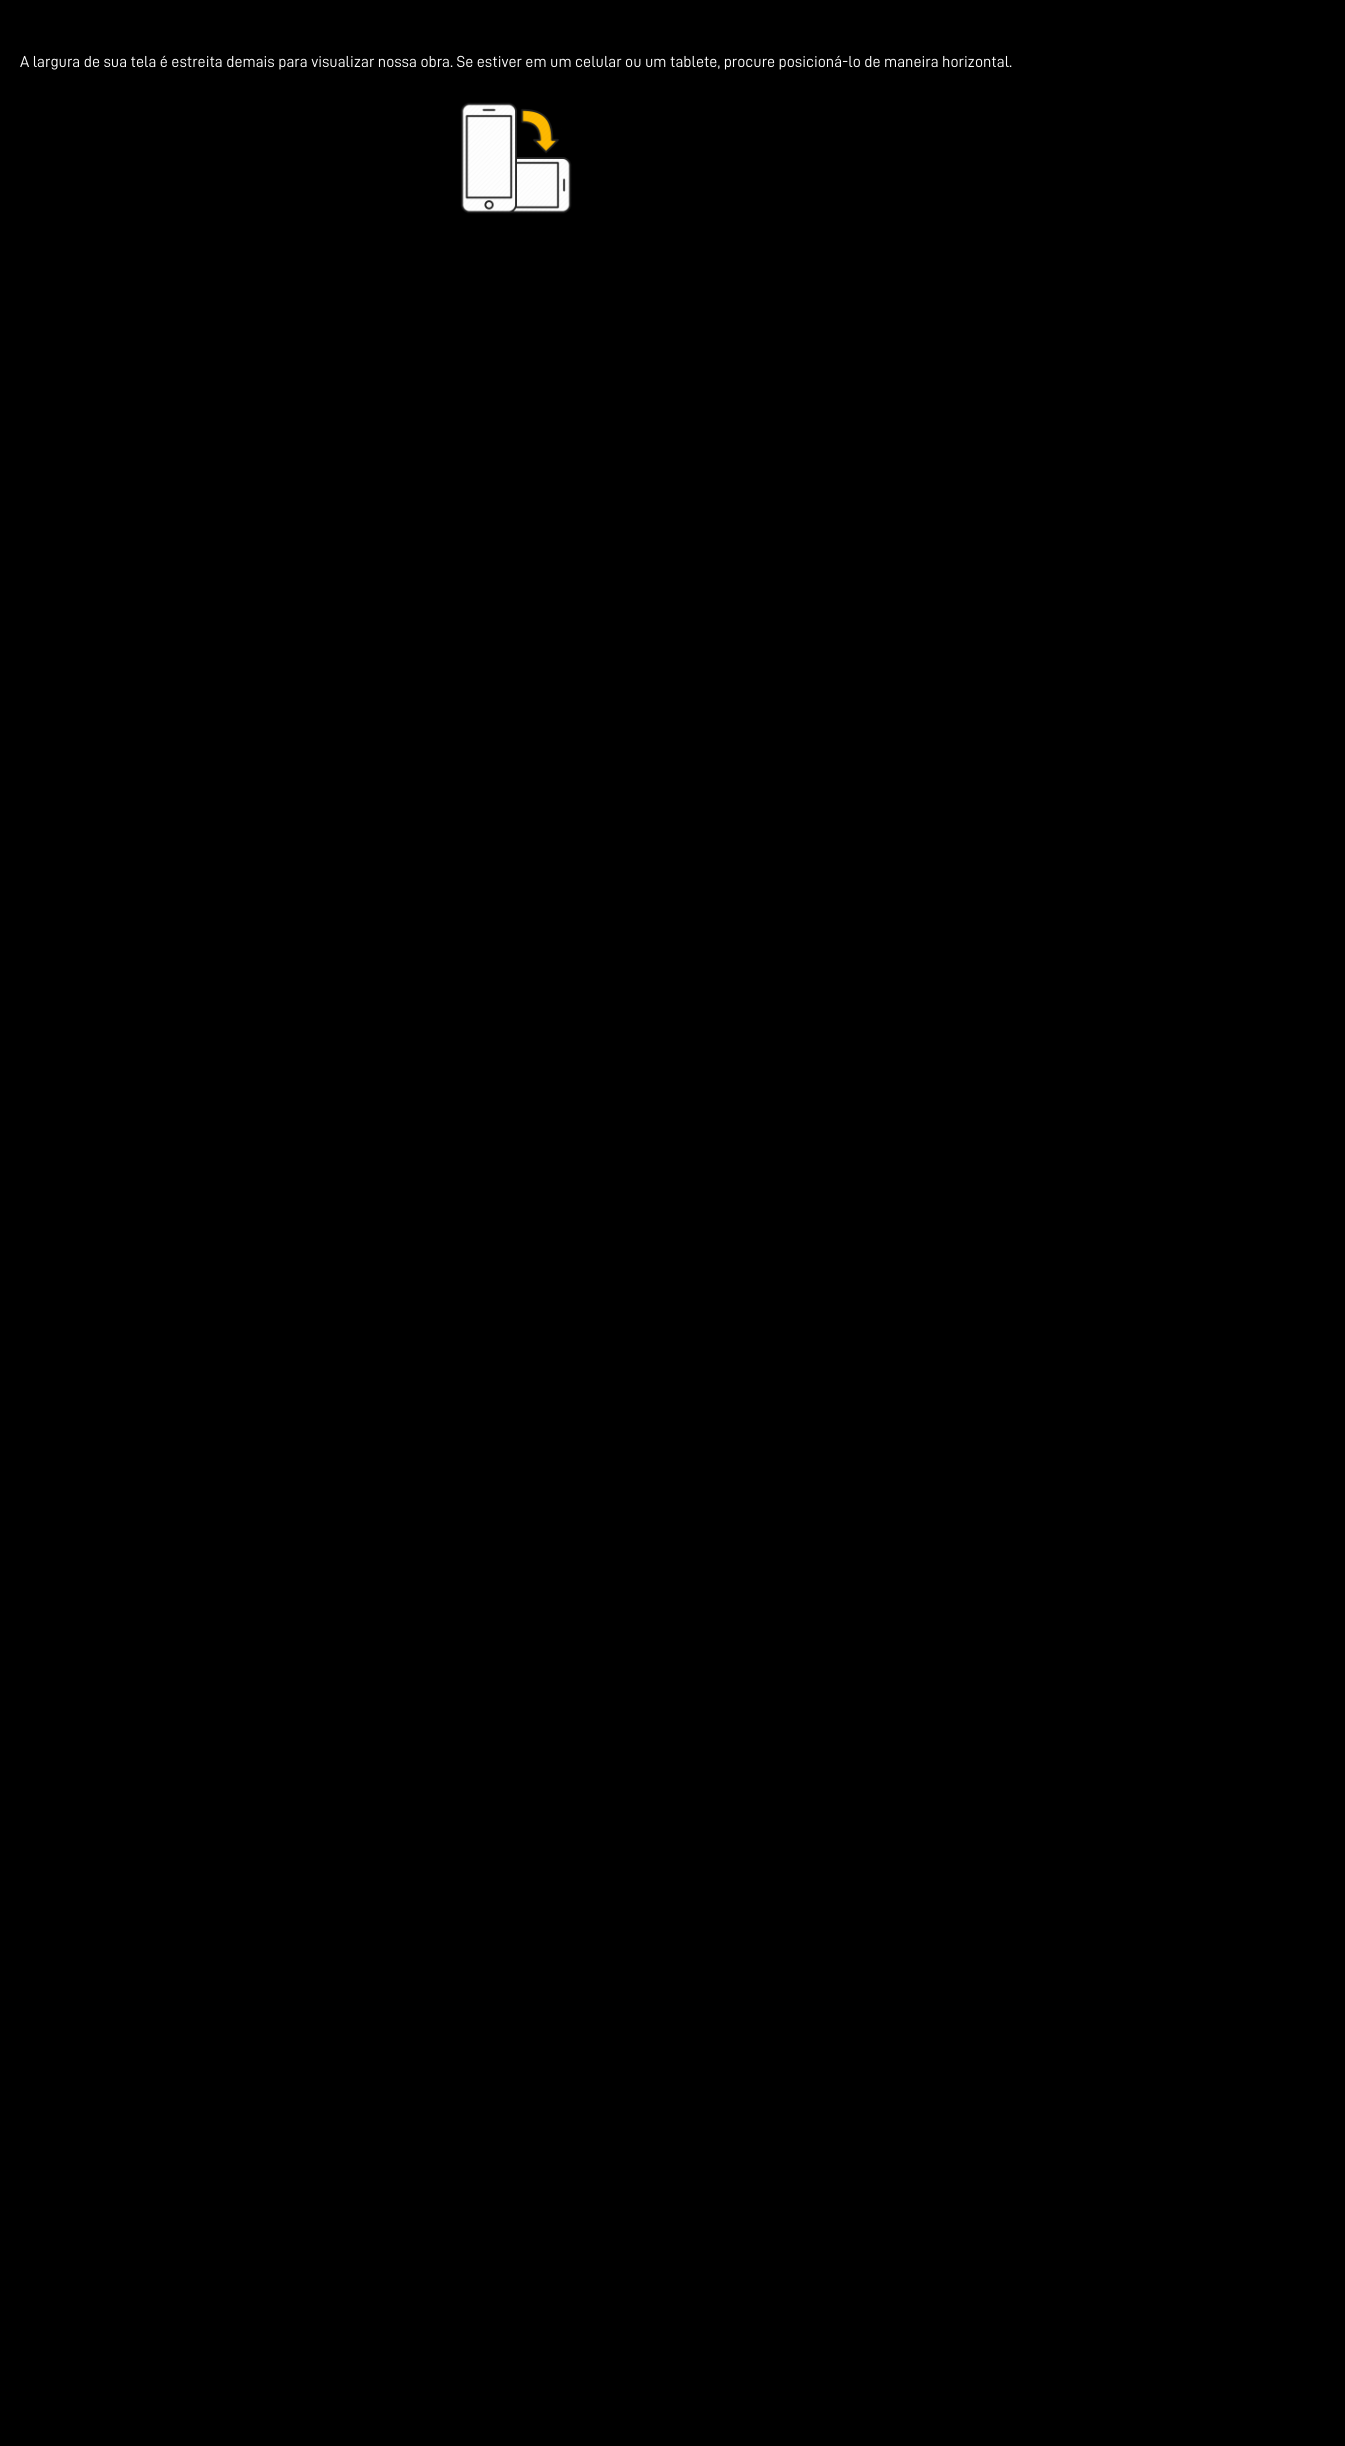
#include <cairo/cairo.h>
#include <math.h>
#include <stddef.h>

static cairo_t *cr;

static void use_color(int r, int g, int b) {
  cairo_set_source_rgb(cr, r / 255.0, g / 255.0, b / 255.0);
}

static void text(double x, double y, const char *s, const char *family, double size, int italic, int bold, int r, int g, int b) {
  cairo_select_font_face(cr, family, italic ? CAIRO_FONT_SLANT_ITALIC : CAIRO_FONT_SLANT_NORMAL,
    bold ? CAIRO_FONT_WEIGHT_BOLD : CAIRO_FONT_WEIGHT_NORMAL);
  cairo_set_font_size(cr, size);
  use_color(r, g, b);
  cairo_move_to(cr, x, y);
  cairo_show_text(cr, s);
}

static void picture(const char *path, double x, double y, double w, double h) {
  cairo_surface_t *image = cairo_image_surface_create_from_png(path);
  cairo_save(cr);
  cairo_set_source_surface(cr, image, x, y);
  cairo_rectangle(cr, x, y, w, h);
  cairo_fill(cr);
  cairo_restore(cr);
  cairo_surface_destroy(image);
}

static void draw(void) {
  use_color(0, 0, 0);
  cairo_paint(cr);
  picture("img_01.png", 460, 102, 112, 112);
  text(20, 67, "A largura de sua tela é estreita demais para visualizar nossa obra. Se estiver em um celular ou um tablete, procure posicioná-lo de maneira horizontal.", "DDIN", 16, 0, 0, 255, 255, 255);
}

int main(void) {
  cairo_surface_t *surface = cairo_image_surface_create(CAIRO_FORMAT_RGB24, 1345, 2446);
  cr = cairo_create(surface);
  cairo_font_options_t *options = cairo_font_options_create();
  cairo_font_options_set_hint_metrics(options, CAIRO_HINT_METRICS_OFF);
  cairo_font_options_set_hint_style(options, CAIRO_HINT_STYLE_NONE);
  cairo_set_font_options(cr, options);
  cairo_set_miter_limit(cr, 4);
  draw();
  cairo_surface_write_to_png(surface, "out.png");
  cairo_font_options_destroy(options);
  cairo_destroy(cr);
  cairo_surface_destroy(surface);
  return 0;
}
